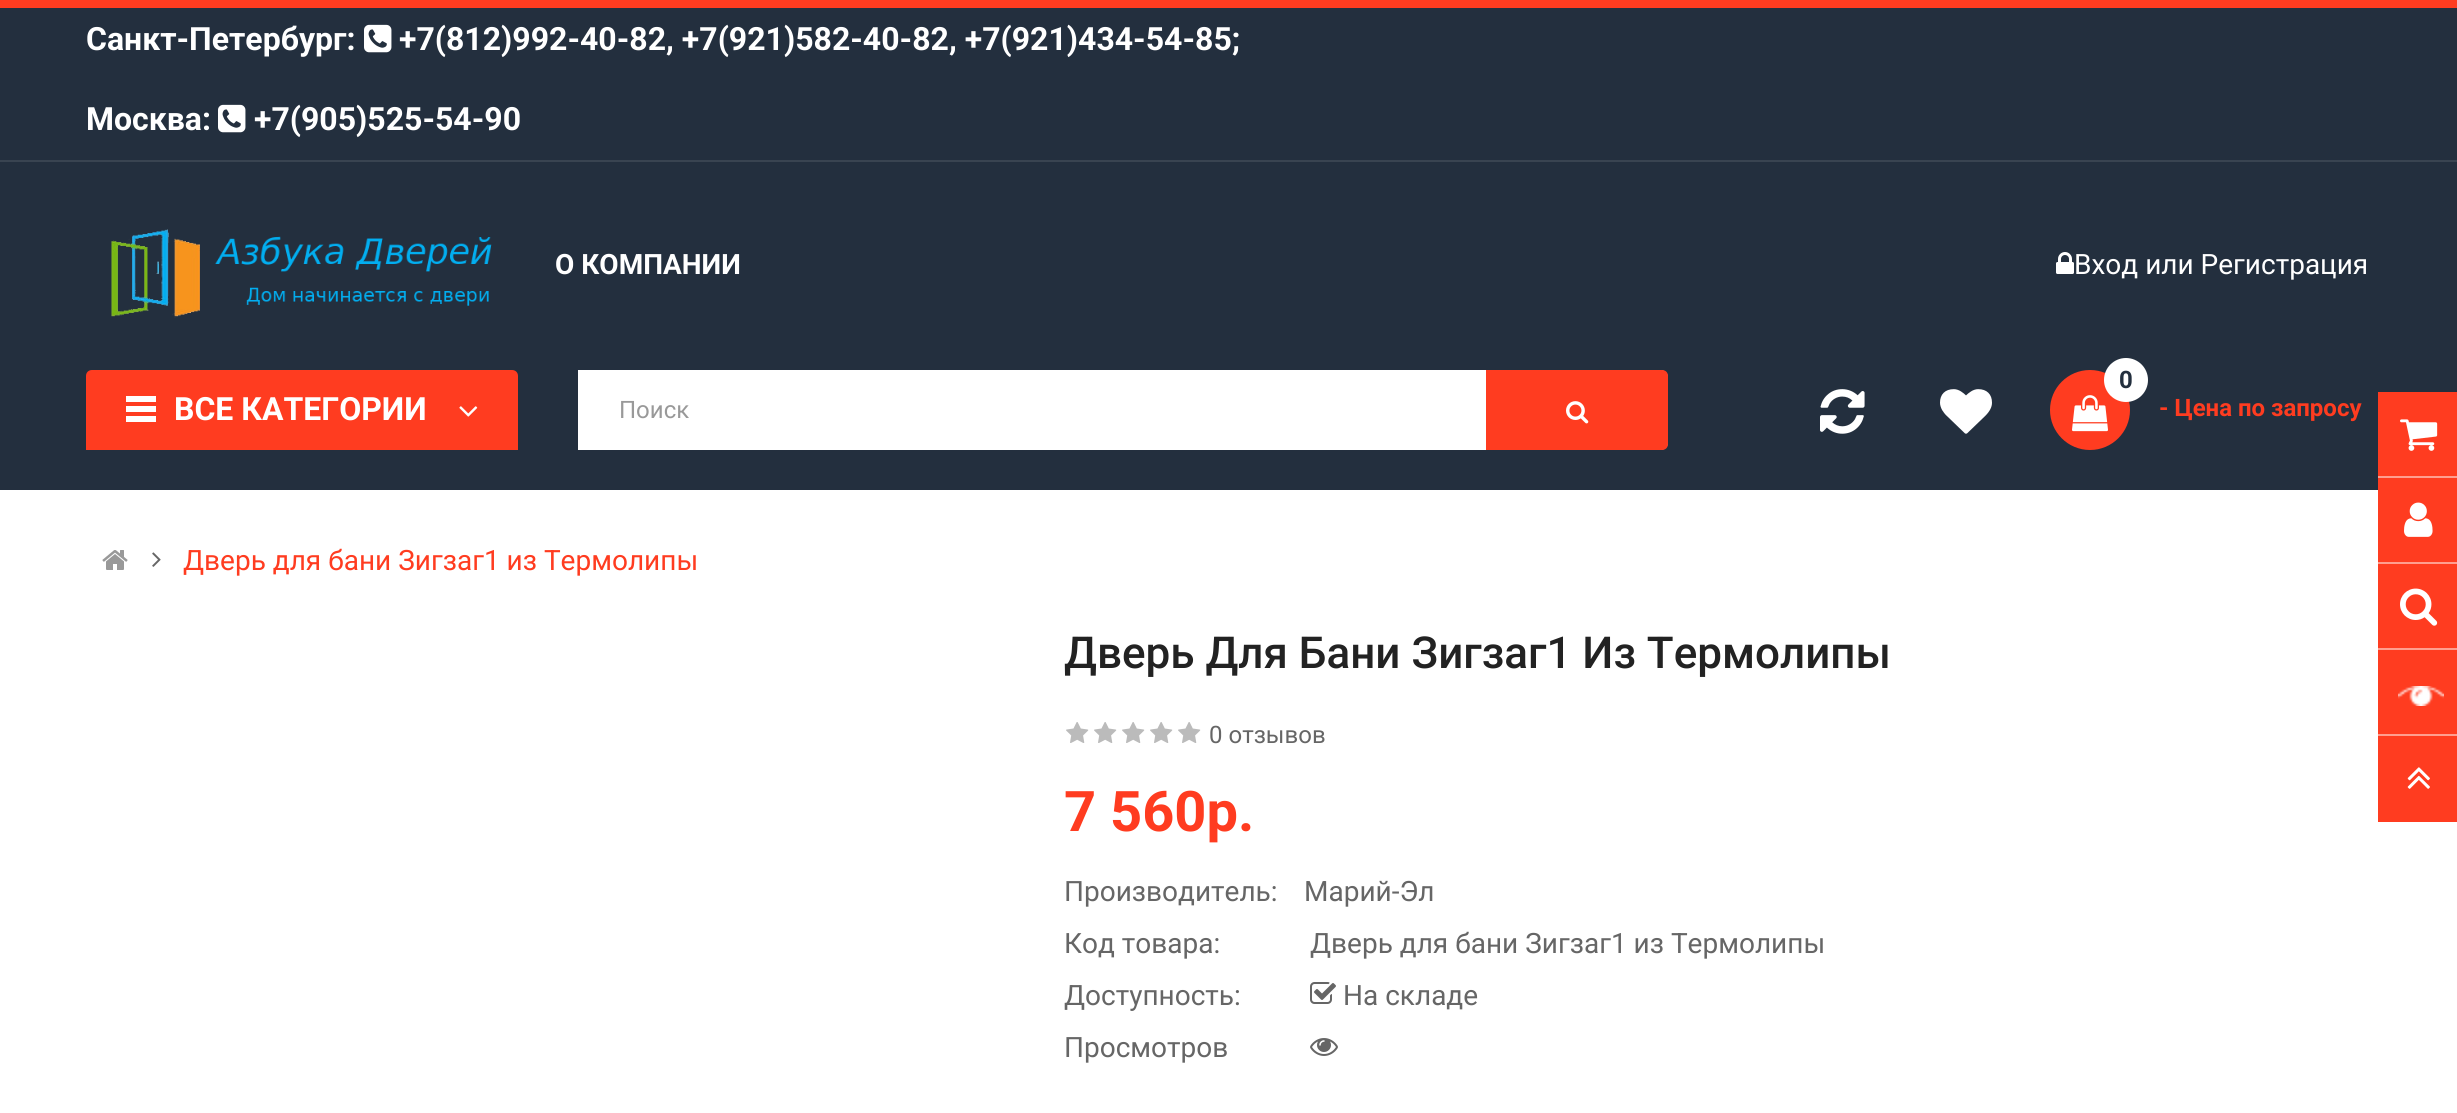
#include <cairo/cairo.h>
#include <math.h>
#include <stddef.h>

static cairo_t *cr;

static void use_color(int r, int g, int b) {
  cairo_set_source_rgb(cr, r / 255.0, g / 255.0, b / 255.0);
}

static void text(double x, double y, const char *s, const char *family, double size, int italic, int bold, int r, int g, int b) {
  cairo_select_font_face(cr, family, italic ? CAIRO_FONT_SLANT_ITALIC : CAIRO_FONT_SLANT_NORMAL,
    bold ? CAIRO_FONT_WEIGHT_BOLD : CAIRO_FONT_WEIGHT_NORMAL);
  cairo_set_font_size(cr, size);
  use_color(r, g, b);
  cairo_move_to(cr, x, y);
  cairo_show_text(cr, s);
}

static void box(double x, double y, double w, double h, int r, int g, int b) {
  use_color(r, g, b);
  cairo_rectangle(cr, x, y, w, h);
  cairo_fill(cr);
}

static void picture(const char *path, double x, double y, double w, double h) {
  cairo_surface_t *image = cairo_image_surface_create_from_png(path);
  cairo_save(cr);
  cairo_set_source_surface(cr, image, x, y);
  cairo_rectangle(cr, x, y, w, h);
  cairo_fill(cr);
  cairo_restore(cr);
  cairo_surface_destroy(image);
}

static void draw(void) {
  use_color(255, 255, 255);
  cairo_paint(cr);
  box(0, 0, 2457, 8, 255, 60, 32);
  box(0, 8, 2457, 482, 35, 47, 62);
  box(0, 160, 2457, 2, 57, 68, 81);
  picture("img_01.png", 364, 24, 28, 29);
  picture("img_01.png", 218, 104, 28, 29);
  picture("img_02.png", 111, 229, 381, 89);
  picture("img_03.png", 2056, 252, 18, 22);
  use_color(255, 60, 32);
  cairo_new_path(cr);
  cairo_move_to(cr, 92, 370);
  cairo_line_to(cr, 512, 370);
  cairo_curve_to(cr, 515.5, 370, 518, 372.5, 518, 376);
  cairo_line_to(cr, 518, 450);
  cairo_line_to(cr, 86, 450);
  cairo_line_to(cr, 86, 376);
  cairo_curve_to(cr, 86, 372.5, 88.5, 370, 92, 370);
  cairo_close_path(cr);
  cairo_fill(cr);
  box(126, 396, 30, 6, 255, 255, 255);
  box(126, 406, 30, 6, 255, 255, 255);
  box(126, 416, 30, 6, 255, 255, 255);
  picture("img_04.png", 459, 406, 19, 11);
  cairo_new_path(cr);
  cairo_move_to(cr, 578, 370);
  cairo_line_to(cr, 1660, 370);
  cairo_curve_to(cr, 1664.5, 370, 1668, 373.5, 1668, 378);
  cairo_line_to(cr, 1668, 442);
  cairo_curve_to(cr, 1668, 446.5, 1664.5, 450, 1660, 450);
  cairo_line_to(cr, 578, 450);
  cairo_close_path(cr);
  cairo_fill(cr);
  use_color(255, 60, 32);
  cairo_new_path(cr);
  cairo_move_to(cr, 1486, 370);
  cairo_line_to(cr, 1662, 370);
  cairo_curve_to(cr, 1665.5, 370, 1668, 372.5, 1668, 376);
  cairo_line_to(cr, 1668, 444);
  cairo_curve_to(cr, 1668, 447.5, 1665.5, 450, 1662, 450);
  cairo_line_to(cr, 1486, 450);
  cairo_close_path(cr);
  cairo_fill(cr);
  picture("img_05.png", 1566, 401, 23, 23);
  picture("img_06.png", 1820, 389, 45, 45);
  picture("img_07.png", 1940, 389, 52, 45);
  cairo_arc(cr, 2090, 410, 40, 0, 2 * M_PI);
  cairo_fill(cr);
  picture("img_08.png", 2072, 395, 36, 37);
  use_color(255, 255, 255);
  cairo_arc(cr, 2126, 380, 22, 0, 2 * M_PI);
  cairo_fill(cr);
  picture("img_09.png", 102, 550, 26, 20);
  picture("img_10.png", 152, 552, 9, 15);
  picture("img_11.png", 1066, 722, 23, 21);
  picture("img_11.png", 1094, 722, 23, 21);
  picture("img_11.png", 1122, 722, 23, 21);
  picture("img_11.png", 1150, 722, 23, 21);
  picture("img_11.png", 1178, 722, 23, 21);
  picture("img_12.png", 1310, 982, 26, 22);
  picture("img_13.png", 1310, 1038, 28, 18);
  box(2378, 392, 79, 430, 255, 60, 32);
  box(2378, 476, 79, 2, 255, 158, 144);
  picture("img_14.png", 2400, 419, 38, 32);
  box(2378, 562, 79, 2, 255, 158, 144);
  picture("img_15.png", 2404, 502, 29, 35);
  box(2378, 648, 79, 2, 255, 158, 144);
  picture("img_16.png", 2400, 588, 38, 38);
  box(2378, 734, 79, 2, 255, 158, 144);
  picture("img_17.png", 2398, 686, 46, 20);
  picture("img_18.png", 2407, 767, 23, 22);
  text(86, 50, "Санкт-Петербург:", "Roboto", 32, 0, 1, 255, 255, 255);
  text(399, 50, "+7(812)992-40-82, +7(921)582-40-82, +7(921)434-54-85;", "Roboto", 32, 0, 1, 255, 255, 255);
  text(86, 130, "Москва:", "Roboto", 32, 0, 1, 255, 255, 255);
  text(254, 130, "+7(905)525-54-90", "Roboto", 32, 0, 1, 255, 255, 255);
  text(555, 274, "О КОМПАНИИ", "Roboto", 28, 0, 1, 255, 255, 255);
  text(2074, 274, "Вход или Регистрация", "Roboto", 28, 0, 0, 255, 255, 255);
  text(174, 420, "ВСЕ КАТЕГОРИИ", "Roboto", 32, 0, 1, 255, 255, 255);
  text(619, 418, "Поиск", "Roboto", 24, 0, 0, 153, 153, 153);
  text(2119, 388, "0", "Roboto", 24, 0, 1, 35, 47, 62);
  text(2159, 416, "- Цена по запросу", "Roboto", 24, 0, 1, 255, 60, 32);
  text(183, 570, "Дверь для бани Зигзаг1 из Термолипы", "Roboto", 28, 0, 0, 255, 60, 32);
  text(1064, 668, "Дверь Для Бани Зигзаг1 Из Термолипы", "Roboto Medium", 44, 0, 0, 34, 34, 34);
  text(1209, 743, "0 отзывов", "Roboto", 24, 0, 0, 102, 102, 102);
  text(1064, 831, "7 560р.", "Roboto", 56, 0, 1, 255, 60, 32);
  text(1064, 901, "Производитель:", "Roboto", 28, 0, 0, 102, 102, 102);
  text(1304, 901, "Марий-Эл", "Roboto", 28, 0, 0, 102, 102, 102);
  text(1064, 953, "Код товара:", "Roboto", 28, 0, 0, 102, 102, 102);
  text(1310, 953, "Дверь для бани Зигзаг1 из Термолипы", "Roboto", 28, 0, 0, 102, 102, 102);
  text(1064, 1005, "Доступность:", "Roboto", 28, 0, 0, 102, 102, 102);
  text(1343, 1005, "На складе", "Roboto", 28, 0, 0, 102, 102, 102);
  text(1064, 1057, "Просмотров", "Roboto", 28, 0, 0, 102, 102, 102);
}

int main(void) {
  cairo_surface_t *surface = cairo_image_surface_create(CAIRO_FORMAT_RGB24, 2457, 1113);
  cr = cairo_create(surface);
  cairo_font_options_t *options = cairo_font_options_create();
  cairo_font_options_set_hint_metrics(options, CAIRO_HINT_METRICS_OFF);
  cairo_font_options_set_hint_style(options, CAIRO_HINT_STYLE_NONE);
  cairo_set_font_options(cr, options);
  cairo_set_miter_limit(cr, 4);
  draw();
  cairo_surface_write_to_png(surface, "out.png");
  cairo_font_options_destroy(options);
  cairo_destroy(cr);
  cairo_surface_destroy(surface);
  return 0;
}
